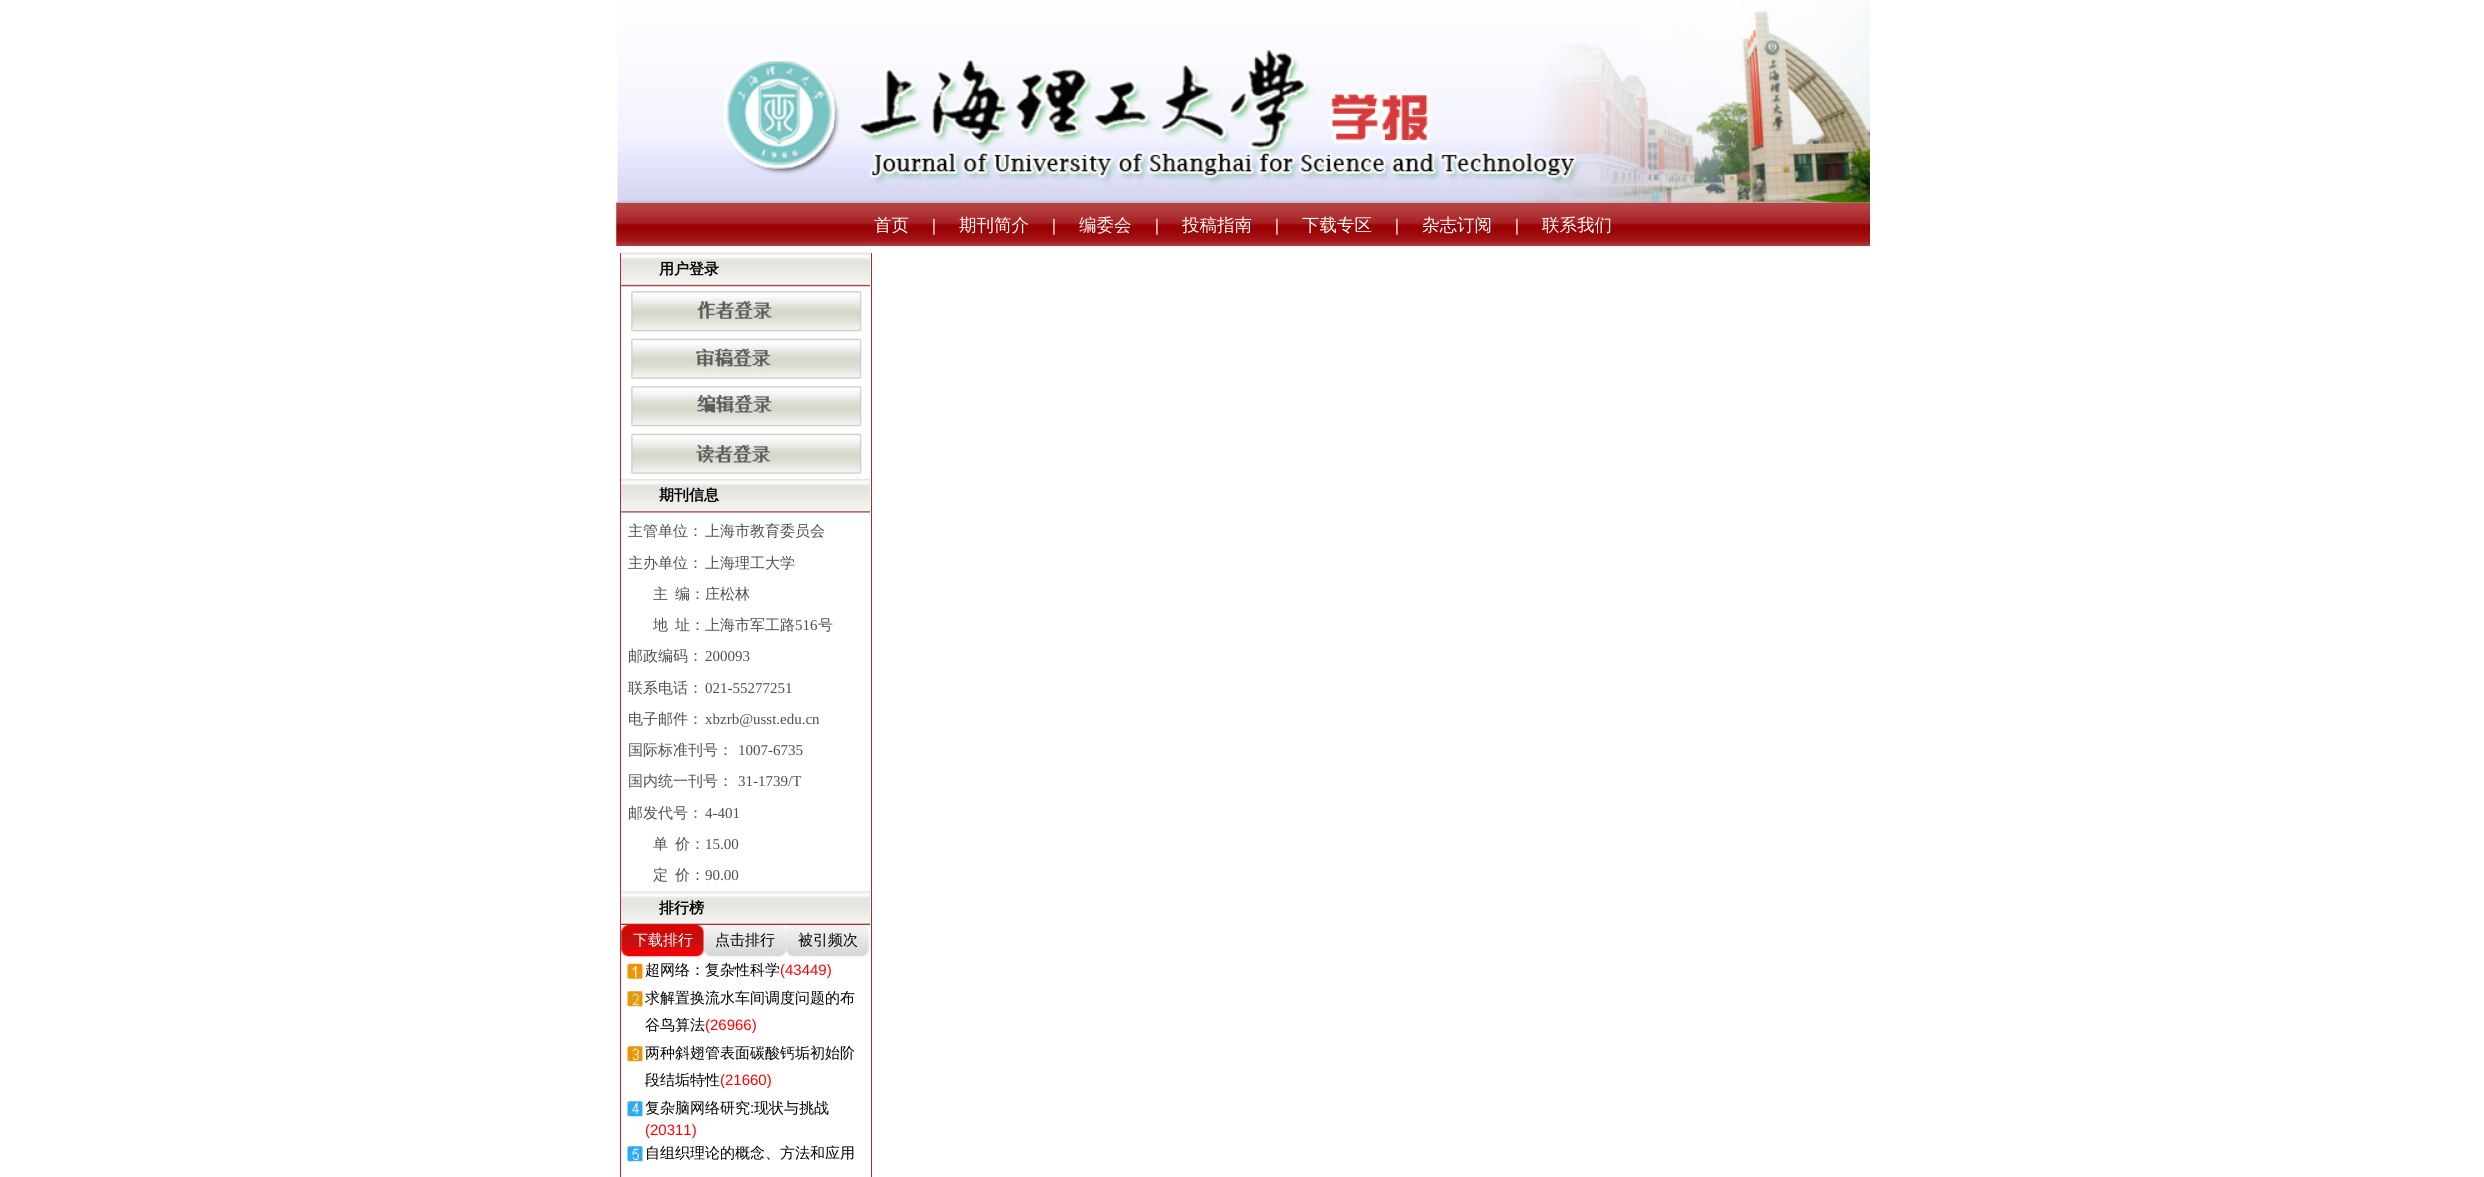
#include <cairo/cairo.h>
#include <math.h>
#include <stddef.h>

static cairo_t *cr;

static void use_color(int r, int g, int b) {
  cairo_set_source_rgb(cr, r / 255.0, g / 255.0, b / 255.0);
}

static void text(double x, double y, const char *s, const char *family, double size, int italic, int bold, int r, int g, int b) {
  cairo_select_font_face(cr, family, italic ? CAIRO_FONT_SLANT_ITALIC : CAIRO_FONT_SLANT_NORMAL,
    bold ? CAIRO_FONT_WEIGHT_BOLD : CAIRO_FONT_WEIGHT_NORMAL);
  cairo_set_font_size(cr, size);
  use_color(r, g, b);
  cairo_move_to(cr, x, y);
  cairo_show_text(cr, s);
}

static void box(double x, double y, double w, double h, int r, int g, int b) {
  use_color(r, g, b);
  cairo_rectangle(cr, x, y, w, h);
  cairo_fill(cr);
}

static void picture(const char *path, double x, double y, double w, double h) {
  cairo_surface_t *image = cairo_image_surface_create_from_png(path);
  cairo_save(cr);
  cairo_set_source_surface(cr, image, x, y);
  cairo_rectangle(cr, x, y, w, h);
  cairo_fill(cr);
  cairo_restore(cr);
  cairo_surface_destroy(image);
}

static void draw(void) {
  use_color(255, 255, 255);
  cairo_paint(cr);
  picture("img_02.png", 616, 202, 1254, 44);
  picture("img_01.png", 617, 0, 1253, 203);
  box(871, 253, 1, 924, 172, 44, 45);
  box(620, 253, 1, 924, 172, 44, 45);
  picture("img_03.png", 621, 252, 249, 35);
  picture("img_04.png", 631, 291, 231, 41);
  picture("img_05.png", 631, 338, 231, 41);
  picture("img_06.png", 631, 386, 231, 41);
  picture("img_07.png", 631, 433, 231, 41);
  picture("img_08.png", 621, 478, 249, 35);
  picture("img_09.png", 621, 891, 249, 34);
  picture("img_10.png", 621, 925, 83, 32);
  picture("img_11.png", 703, 925, 84, 32);
  picture("img_12.png", 786, 925, 83, 32);
  picture("img_13.png", 627, 963, 16, 16);
  picture("img_14.png", 627, 991, 16, 16);
  picture("img_15.png", 627, 1046, 16, 16);
  picture("img_16.png", 627, 1101, 16, 16);
  picture("img_17.png", 627, 1146, 16, 16);
  text(874, 231, "首页", "WenQuanYi Zen Hei Medium", 17.5, 0, 0, 255, 255, 255);
  text(932, 231, "|", "Liberation Serif", 17.5, 0, 1, 255, 255, 255);
  text(959, 231, "期刊简介", "WenQuanYi Zen Hei Medium", 17.5, 0, 0, 255, 255, 255);
  text(1052, 231, "|", "Liberation Serif", 17.5, 0, 1, 255, 255, 255);
  text(1079, 231, "编委会", "WenQuanYi Zen Hei Medium", 17.5, 0, 0, 255, 255, 255);
  text(1155, 231, "|", "Liberation Serif", 17.5, 0, 1, 255, 255, 255);
  text(1182, 231, "投稿指南", "WenQuanYi Zen Hei Medium", 17.5, 0, 0, 255, 255, 255);
  text(1275, 231, "|", "Liberation Serif", 17.5, 0, 1, 255, 255, 255);
  text(1302, 231, "下载专区", "WenQuanYi Zen Hei Medium", 17.5, 0, 0, 255, 255, 255);
  text(1395, 231, "|", "Liberation Serif", 17.5, 0, 1, 255, 255, 255);
  text(1422, 231, "杂志订阅", "WenQuanYi Zen Hei Medium", 17.5, 0, 0, 255, 255, 255);
  text(1515, 231, "|", "Liberation Serif", 17.5, 0, 1, 255, 255, 255);
  text(1542, 231, "联系我们", "WenQuanYi Zen Hei Medium", 17.5, 0, 0, 255, 255, 255);
  text(659, 274, "用户登录", "WenQuanYi Zen Hei", 15, 0, 1, 0, 0, 0);
  text(659, 500, "期刊信息", "WenQuanYi Zen Hei", 15, 0, 1, 0, 0, 0);
  text(628, 536, "主管单位：", "WenQuanYi Zen Hei Medium", 15, 0, 0, 80, 79, 77);
  text(705, 536, "上海市教育委员会", "WenQuanYi Zen Hei Medium", 15, 0, 0, 80, 79, 77);
  text(628, 568, "主办单位：", "WenQuanYi Zen Hei Medium", 15, 0, 0, 80, 79, 77);
  text(705, 568, "上海理工大学", "WenQuanYi Zen Hei Medium", 15, 0, 0, 80, 79, 77);
  text(653, 599, "主", "WenQuanYi Zen Hei Medium", 15, 0, 0, 80, 79, 77);
  text(675, 599, "编：庄松林", "WenQuanYi Zen Hei Medium", 15, 0, 0, 80, 79, 77);
  text(653, 630, "地", "WenQuanYi Zen Hei Medium", 15, 0, 0, 80, 79, 77);
  text(675, 630, "址：上海市军工路", "WenQuanYi Zen Hei Medium", 15, 0, 0, 80, 79, 77);
  text(795, 630, "516", "Liberation Serif", 15, 0, 0, 80, 79, 77);
  text(818, 630, "号", "WenQuanYi Zen Hei Medium", 15, 0, 0, 80, 79, 77);
  text(628, 661, "邮政编码：", "WenQuanYi Zen Hei Medium", 15, 0, 0, 80, 79, 77);
  text(705, 661, "200093", "Liberation Serif", 15, 0, 0, 80, 79, 77);
  text(628, 693, "联系电话：", "WenQuanYi Zen Hei Medium", 15, 0, 0, 80, 79, 77);
  text(705, 693, "021-55277251", "Liberation Serif", 15, 0, 0, 80, 79, 77);
  text(628, 724, "电子邮件：", "WenQuanYi Zen Hei Medium", 15, 0, 0, 80, 79, 77);
  text(705, 724, "xbzrb@usst.edu.cn", "Liberation Serif", 15, 0, 0, 80, 79, 77);
  text(628, 755, "国际标准刊号：", "WenQuanYi Zen Hei Medium", 15, 0, 0, 80, 79, 77);
  text(738, 755, "1007-6735", "Liberation Serif", 15, 0, 0, 80, 79, 77);
  text(628, 786, "国内统一刊号：", "WenQuanYi Zen Hei Medium", 15, 0, 0, 80, 79, 77);
  text(738, 786, "31-1739/T", "Liberation Serif", 15, 0, 0, 80, 79, 77);
  text(628, 818, "邮发代号：", "WenQuanYi Zen Hei Medium", 15, 0, 0, 80, 79, 77);
  text(705, 818, "4-401", "Liberation Serif", 15, 0, 0, 80, 79, 77);
  text(653, 849, "单", "WenQuanYi Zen Hei Medium", 15, 0, 0, 80, 79, 77);
  text(675, 849, "价：", "WenQuanYi Zen Hei Medium", 15, 0, 0, 80, 79, 77);
  text(705, 849, "15.00", "Liberation Serif", 15, 0, 0, 80, 79, 77);
  text(653, 880, "定", "WenQuanYi Zen Hei Medium", 15, 0, 0, 80, 79, 77);
  text(675, 880, "价：", "WenQuanYi Zen Hei Medium", 15, 0, 0, 80, 79, 77);
  text(705, 880, "90.00", "Liberation Serif", 15, 0, 0, 80, 79, 77);
  text(659, 913, "排行榜", "WenQuanYi Zen Hei", 15, 0, 1, 0, 0, 0);
  text(633, 945, "下载排行", "WenQuanYi Zen Hei Medium", 15, 0, 0, 255, 255, 255);
  text(715, 945, "点击排行", "WenQuanYi Zen Hei Medium", 15, 0, 0, 0, 0, 0);
  text(798, 945, "被引频次", "WenQuanYi Zen Hei Medium", 15, 0, 0, 0, 0, 0);
  text(645, 975, "超网络：复杂性科学", "WenQuanYi Zen Hei Medium", 15, 0, 0, 0, 0, 0);
  text(780, 975, "(43449)", "Liberation Sans", 15, 0, 0, 255, 0, 0);
  text(645, 1003, "求解置换流水车间调度问题的布", "WenQuanYi Zen Hei Medium", 15, 0, 0, 0, 0, 0);
  text(645, 1030, "谷鸟算法", "WenQuanYi Zen Hei Medium", 15, 0, 0, 0, 0, 0);
  text(705, 1030, "(26966)", "Liberation Sans", 15, 0, 0, 255, 0, 0);
  text(645, 1058, "两种斜翅管表面碳酸钙垢初始阶", "WenQuanYi Zen Hei Medium", 15, 0, 0, 0, 0, 0);
  text(645, 1085, "段结垢特性", "WenQuanYi Zen Hei Medium", 15, 0, 0, 0, 0, 0);
  text(720, 1085, "(21660)", "Liberation Sans", 15, 0, 0, 255, 0, 0);
  text(645, 1113, "复杂脑网络研究", "WenQuanYi Zen Hei Medium", 15, 0, 0, 0, 0, 0);
  text(750, 1113, ":", "Liberation Sans", 15, 0, 0, 0, 0, 0);
  text(754, 1113, "现状与挑战", "WenQuanYi Zen Hei Medium", 15, 0, 0, 0, 0, 0);
  text(645, 1135, "(20311)", "Liberation Sans", 15, 0, 0, 255, 0, 0);
  text(645, 1158, "自组织理论的概念、方法和应用", "WenQuanYi Zen Hei Medium", 15, 0, 0, 0, 0, 0);
}

int main(void) {
  cairo_surface_t *surface = cairo_image_surface_create(CAIRO_FORMAT_RGB24, 2484, 1177);
  cr = cairo_create(surface);
  cairo_font_options_t *options = cairo_font_options_create();
  cairo_font_options_set_hint_metrics(options, CAIRO_HINT_METRICS_OFF);
  cairo_font_options_set_hint_style(options, CAIRO_HINT_STYLE_NONE);
  cairo_set_font_options(cr, options);
  cairo_set_miter_limit(cr, 4);
  draw();
  cairo_surface_write_to_png(surface, "out.png");
  cairo_font_options_destroy(options);
  cairo_destroy(cr);
  cairo_surface_destroy(surface);
  return 0;
}
